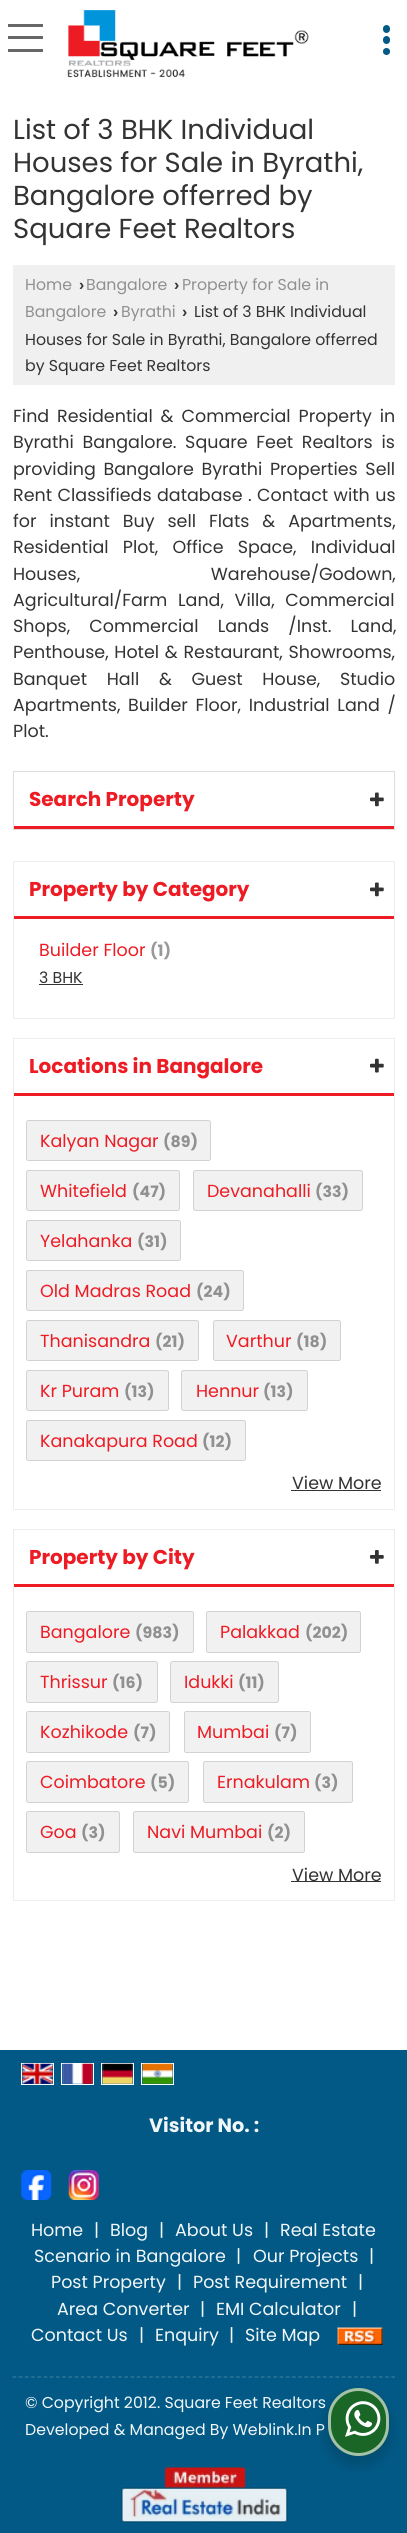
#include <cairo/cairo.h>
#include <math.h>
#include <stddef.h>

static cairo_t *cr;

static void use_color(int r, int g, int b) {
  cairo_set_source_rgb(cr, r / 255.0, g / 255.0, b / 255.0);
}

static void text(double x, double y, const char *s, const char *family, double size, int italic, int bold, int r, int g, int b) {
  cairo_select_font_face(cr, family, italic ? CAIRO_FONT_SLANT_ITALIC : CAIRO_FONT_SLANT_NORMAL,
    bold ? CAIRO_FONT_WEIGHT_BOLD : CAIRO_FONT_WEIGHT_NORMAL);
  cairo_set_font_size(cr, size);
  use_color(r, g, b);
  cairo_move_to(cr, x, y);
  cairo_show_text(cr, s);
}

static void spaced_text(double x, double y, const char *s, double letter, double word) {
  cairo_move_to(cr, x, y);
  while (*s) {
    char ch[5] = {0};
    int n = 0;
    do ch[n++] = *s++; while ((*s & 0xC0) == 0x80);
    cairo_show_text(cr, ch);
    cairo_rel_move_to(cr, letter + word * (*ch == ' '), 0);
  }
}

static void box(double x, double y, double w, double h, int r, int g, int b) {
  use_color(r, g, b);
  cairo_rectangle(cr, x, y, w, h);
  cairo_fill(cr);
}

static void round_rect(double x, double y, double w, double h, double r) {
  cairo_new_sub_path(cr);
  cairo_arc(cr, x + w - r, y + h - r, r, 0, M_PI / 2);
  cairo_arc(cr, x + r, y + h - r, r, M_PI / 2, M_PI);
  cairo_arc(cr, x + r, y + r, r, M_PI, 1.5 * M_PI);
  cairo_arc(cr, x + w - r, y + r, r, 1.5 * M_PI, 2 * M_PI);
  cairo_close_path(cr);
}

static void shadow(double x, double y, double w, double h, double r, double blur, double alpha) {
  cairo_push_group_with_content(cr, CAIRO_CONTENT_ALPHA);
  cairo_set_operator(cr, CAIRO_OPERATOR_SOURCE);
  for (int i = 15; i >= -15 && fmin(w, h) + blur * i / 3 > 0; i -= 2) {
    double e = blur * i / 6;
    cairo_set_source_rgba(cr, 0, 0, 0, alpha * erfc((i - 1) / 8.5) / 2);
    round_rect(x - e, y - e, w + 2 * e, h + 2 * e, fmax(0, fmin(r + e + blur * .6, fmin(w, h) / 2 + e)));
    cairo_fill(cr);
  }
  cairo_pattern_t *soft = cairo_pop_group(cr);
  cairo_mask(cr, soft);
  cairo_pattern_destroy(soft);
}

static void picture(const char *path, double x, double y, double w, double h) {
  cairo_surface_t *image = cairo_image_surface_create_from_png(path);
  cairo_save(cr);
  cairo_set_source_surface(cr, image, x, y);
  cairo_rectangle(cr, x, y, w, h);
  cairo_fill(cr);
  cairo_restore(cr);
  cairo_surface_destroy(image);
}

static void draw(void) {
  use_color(255, 255, 255);
  cairo_paint(cr);
  box(8, 36, 35, 3, 102, 102, 102);
  box(8, 24, 35, 3, 102, 102, 102);
  box(8, 49, 35, 3, 102, 102, 102);
  picture("img_01.png", 67, 10, 242, 68);
  use_color(2, 89, 133);
  round_rect(383, 36, 7, 8, 3.5);
  cairo_fill(cr);
  round_rect(383, 25, 7, 8, 3.5);
  cairo_fill(cr);
  cairo_arc(cr, 386.5, 51.5, 3.5, 0, 2 * M_PI);
  cairo_fill(cr);
  box(13, 265, 382, 120, 240, 240, 240);
  cairo_rectangle(cr, 13.5, 771.5, 381, 58);
  use_color(222, 222, 222);
  cairo_set_line_width(cr, 1);
  cairo_stroke(cr);
  box(14, 826, 380, 3, 237, 28, 36);
  picture("img_02.png", 370, 792, 14, 15);
  cairo_rectangle(cr, 13.5, 861.5, 381, 157);
  use_color(237, 237, 237);
  cairo_stroke(cr);
  box(14, 916, 380, 3, 237, 28, 36);
  picture("img_02.png", 370, 882, 14, 15);
  box(39, 984, 44, 1, 51, 51, 51);
  cairo_rectangle(cr, 13.5, 1038.5, 381, 471);
  use_color(237, 237, 237);
  cairo_stroke(cr);
  box(14, 1093, 380, 3, 237, 28, 36);
  picture("img_03.png", 370, 1058, 14, 15);
  use_color(241, 241, 241);
  round_rect(26, 1120, 185, 41, 2.5);
  cairo_fill(cr);
  round_rect(26.5, 1120.5, 184, 40, 2);
  cairo_set_source_rgba(cr, 0, 0, 0, 0.13);
  cairo_stroke(cr);
  use_color(241, 241, 241);
  round_rect(26, 1170, 154, 41, 2.5);
  cairo_fill(cr);
  round_rect(26.5, 1170.5, 153, 40, 2);
  cairo_set_source_rgba(cr, 0, 0, 0, 0.13);
  cairo_stroke(cr);
  use_color(241, 241, 241);
  round_rect(193, 1170, 170, 41, 2.5);
  cairo_fill(cr);
  round_rect(193.5, 1170.5, 169, 40, 2);
  cairo_set_source_rgba(cr, 0, 0, 0, 0.13);
  cairo_stroke(cr);
  use_color(241, 241, 241);
  round_rect(26, 1220, 155, 41, 2.5);
  cairo_fill(cr);
  round_rect(26.5, 1220.5, 154, 40, 2);
  cairo_set_source_rgba(cr, 0, 0, 0, 0.13);
  cairo_stroke(cr);
  use_color(241, 241, 241);
  round_rect(26, 1270, 218, 41, 2.5);
  cairo_fill(cr);
  round_rect(26.5, 1270.5, 217, 40, 2);
  cairo_set_source_rgba(cr, 0, 0, 0, 0.13);
  cairo_stroke(cr);
  use_color(241, 241, 241);
  round_rect(26, 1320, 173, 41, 2.5);
  cairo_fill(cr);
  round_rect(26.5, 1320.5, 172, 40, 2);
  cairo_set_source_rgba(cr, 0, 0, 0, 0.13);
  cairo_stroke(cr);
  use_color(241, 241, 241);
  round_rect(213, 1320, 128, 41, 2.5);
  cairo_fill(cr);
  round_rect(213.5, 1320.5, 127, 40, 2);
  cairo_set_source_rgba(cr, 0, 0, 0, 0.13);
  cairo_stroke(cr);
  use_color(241, 241, 241);
  round_rect(26, 1370, 143, 41, 2.5);
  cairo_fill(cr);
  round_rect(26.5, 1370.5, 142, 40, 2);
  cairo_set_source_rgba(cr, 0, 0, 0, 0.13);
  cairo_stroke(cr);
  use_color(241, 241, 241);
  round_rect(181, 1370, 127, 41, 2.5);
  cairo_fill(cr);
  round_rect(181.5, 1370.5, 126, 40, 2);
  cairo_set_source_rgba(cr, 0, 0, 0, 0.13);
  cairo_stroke(cr);
  use_color(241, 241, 241);
  round_rect(26, 1420, 220, 41, 2.5);
  cairo_fill(cr);
  round_rect(26.5, 1420.5, 219, 40, 2);
  cairo_set_source_rgba(cr, 0, 0, 0, 0.13);
  cairo_stroke(cr);
  box(291, 1490, 90, 1, 51, 51, 51);
  cairo_rectangle(cr, 13.5, 1529.5, 381, 371);
  use_color(237, 237, 237);
  cairo_stroke(cr);
  box(14, 1584, 380, 3, 237, 28, 36);
  picture("img_04.png", 370, 1550, 14, 14);
  use_color(241, 241, 241);
  round_rect(26, 1611, 168, 42, 2.5);
  cairo_fill(cr);
  round_rect(26.5, 1611.5, 167, 41, 2);
  cairo_set_source_rgba(cr, 0, 0, 0, 0.13);
  cairo_stroke(cr);
  use_color(241, 241, 241);
  round_rect(206, 1611, 155, 42, 2.5);
  cairo_fill(cr);
  round_rect(206.5, 1611.5, 154, 41, 2);
  cairo_set_source_rgba(cr, 0, 0, 0, 0.13);
  cairo_stroke(cr);
  use_color(241, 241, 241);
  round_rect(26, 1661, 132, 42, 2.5);
  cairo_fill(cr);
  round_rect(26.5, 1661.5, 131, 41, 2);
  cairo_set_source_rgba(cr, 0, 0, 0, 0.13);
  cairo_stroke(cr);
  use_color(241, 241, 241);
  round_rect(170, 1661, 109, 42, 2.5);
  cairo_fill(cr);
  round_rect(170.5, 1661.5, 108, 41, 2);
  cairo_set_source_rgba(cr, 0, 0, 0, 0.13);
  cairo_stroke(cr);
  use_color(241, 241, 241);
  round_rect(26, 1711, 144, 42, 2.5);
  cairo_fill(cr);
  round_rect(26.5, 1711.5, 143, 41, 2);
  cairo_set_source_rgba(cr, 0, 0, 0, 0.13);
  cairo_stroke(cr);
  use_color(241, 241, 241);
  round_rect(184, 1711, 127, 42, 2.5);
  cairo_fill(cr);
  round_rect(184.5, 1711.5, 126, 41, 2);
  cairo_set_source_rgba(cr, 0, 0, 0, 0.13);
  cairo_stroke(cr);
  use_color(241, 241, 241);
  round_rect(26, 1761, 163, 42, 2.5);
  cairo_fill(cr);
  round_rect(26.5, 1761.5, 162, 41, 2);
  cairo_set_source_rgba(cr, 0, 0, 0, 0.13);
  cairo_stroke(cr);
  use_color(241, 241, 241);
  round_rect(203, 1761, 150, 42, 2.5);
  cairo_fill(cr);
  round_rect(203.5, 1761.5, 149, 41, 2);
  cairo_set_source_rgba(cr, 0, 0, 0, 0.13);
  cairo_stroke(cr);
  use_color(241, 241, 241);
  round_rect(26, 1811, 94, 42, 2.5);
  cairo_fill(cr);
  round_rect(26.5, 1811.5, 93, 41, 2);
  cairo_set_source_rgba(cr, 0, 0, 0, 0.13);
  cairo_stroke(cr);
  use_color(241, 241, 241);
  round_rect(133, 1811, 172, 42, 2.5);
  cairo_fill(cr);
  round_rect(133.5, 1811.5, 171, 41, 2);
  cairo_set_source_rgba(cr, 0, 0, 0, 0.13);
  cairo_stroke(cr);
  box(291, 1881, 90, 1, 51, 51, 51);
  box(0, 2050, 407, 483, 2, 89, 133);
  cairo_rectangle(cr, 21.5, 2063.5, 32, 21);
  use_color(255, 255, 255);
  cairo_stroke(cr);
  picture("img_05.png", 22, 2063, 31, 21);
  cairo_rectangle(cr, 61.5, 2063.5, 32, 21);
  cairo_stroke(cr);
  picture("img_06.png", 62, 2063, 31, 21);
  cairo_rectangle(cr, 101.5, 2063.5, 32, 21);
  cairo_stroke(cr);
  picture("img_07.png", 102, 2063, 31, 21);
  cairo_rectangle(cr, 141.5, 2063.5, 32, 21);
  cairo_stroke(cr);
  picture("img_08.png", 142, 2063, 31, 21);
  picture("img_09.png", 21, 2170, 31, 30);
  picture("img_10.png", 68, 2170, 31, 30);
  picture("img_11.png", 337, 2327, 46, 18);
  cairo_new_path(cr);
  cairo_move_to(cr, 12.5, 2377);
  cairo_line_to(cr, 395, 2377);
  use_color(53, 122, 157);
  cairo_set_line_width(cr, 1.2);
  cairo_set_dash(cr, (double[]){3.75, 2.46}, 2, 0);
  cairo_stroke(cr);
  picture("img_12.png", 121, 2467, 167, 56);
  use_color(0, 0, 0);
  shadow(325, 2393, 66, 73, 33, 5, 0.14);
  use_color(25, 102, 38);
  round_rect(328, 2388, 61, 68, 30.5);
  cairo_fill(cr);
  round_rect(329.5, 2389.5, 58, 65, 29);
  cairo_set_source_rgba(cr, 1, 1, 1, 0.6);
  cairo_set_line_width(cr, 3);
  cairo_set_dash(cr, NULL, 0, 0);
  cairo_stroke(cr);
  picture("img_13.png", 345, 2401, 36, 36);
  text(13, 139, "List of 3 BHK Individual", "Poppins", 27.5, 0, 0, 51, 51, 51);
  text(13, 172, "Houses for Sale in Byrathi,", "Poppins", 27.5, 0, 0, 51, 51, 51);
  text(13, 205, "Bangalore offerred by", "Poppins", 27.5, 0, 0, 51, 51, 51);
  text(13, 238, "Square Feet Realtors", "Poppins", 27.5, 0, 0, 51, 51, 51);
  text(25, 290, "Home", "Poppins", 15.75, 0, 0, 144, 144, 144);
  text(79, 290, "›", "Liberation Sans", 15.75, 0, 1, 51, 51, 51);
  text(86, 290, "Bangalore", "Poppins", 15.75, 0, 0, 144, 144, 144);
  text(174, 290, "›", "Liberation Sans", 15.75, 0, 1, 51, 51, 51);
  text(182, 290, "Property for Sale in", "Poppins", 15.75, 0, 0, 144, 144, 144);
  text(25, 317, "Bangalore", "Poppins", 15.75, 0, 0, 144, 144, 144);
  text(113, 317, "›", "Liberation Sans", 15.75, 0, 1, 51, 51, 51);
  text(121, 317, "Byrathi", "Poppins", 15.75, 0, 0, 144, 144, 144);
  text(182, 317, "›", "Liberation Sans", 15.75, 0, 1, 51, 51, 51);
  text(194, 317, "List of 3 BHK Individual", "Poppins", 15.75, 0, 0, 51, 51, 51);
  text(25, 345, "Houses for Sale in Byrathi, Bangalore offerred", "Poppins", 15.75, 0, 0, 51, 51, 51);
  text(25, 371, "by Square Feet Realtors", "Poppins", 15.75, 0, 0, 51, 51, 51);
  cairo_set_font_size(cr, 17.5);
  spaced_text(13, 422, "Find Residential & Commercial Property in", 0, 3.25);
  spaced_text(13, 448, "Byrathi Bangalore. Square Feet Realtors is", 0, 4);
  spaced_text(13, 475, "providing Bangalore Byrathi Properties Sell", 0, 3);
  spaced_text(13, 501, "Rent Classifieds database . Contact with us", 0, 0.75);
  spaced_text(13, 527, "for instant Buy sell Flats & Apartments,", 0, 8.25);
  spaced_text(13, 553, "Residential Plot, Office Space, Individual", 0, 9.5);
  spaced_text(13, 580, "Houses, Warehouse/Godown,", 0, 126);
  spaced_text(13, 606, "Agricultural/Farm Land, Villa, Commercial", 0, 6);
  spaced_text(13, 632, "Shops, Commercial Lands /Inst. Land,", 0, 14.5);
  spaced_text(13, 658, "Penthouse, Hotel & Restaurant, Showrooms,", 0, 1);
  spaced_text(13, 685, "Banquet Hall & Guest House, Studio", 0, 15);
  spaced_text(13, 711, "Apartments, Builder Floor, Industrial Land /", 0, 3);
  text(13, 737, "Plot.", "Poppins", 17.5, 0, 0, 51, 51, 51);
  text(29, 806, "Search Property", "Poppins", 20, 0, 1, 237, 28, 36);
  text(29, 896, "Property by Category", "Poppins", 20, 0, 1, 237, 28, 36);
  text(39, 956, "Builder Floor", "Poppins", 17.5, 0, 0, 237, 28, 36);
  text(150, 956, "(1)", "Poppins", 15.75, 0, 1, 153, 153, 153);
  text(39, 983, "3 BHK", "Poppins", 15.75, 0, 0, 51, 51, 51);
  text(29, 1073, "Locations in Bangalore", "Poppins", 20, 0, 1, 237, 28, 36);
  text(40, 1147, "Kalyan Nagar", "Poppins", 17.5, 0, 0, 237, 28, 36);
  text(163, 1147, "(89)", "Poppins", 15.75, 0, 1, 144, 144, 144);
  text(40, 1197, "Whitefield", "Poppins", 17.5, 0, 0, 237, 28, 36);
  text(132, 1197, "(47)", "Poppins", 15.75, 0, 1, 144, 144, 144);
  text(207, 1197, "Devanahalli", "Poppins", 17.5, 0, 0, 237, 28, 36);
  text(315, 1197, "(33)", "Poppins", 15.75, 0, 1, 144, 144, 144);
  text(40, 1247, "Yelahanka", "Poppins", 17.5, 0, 0, 237, 28, 36);
  text(137, 1247, "(31)", "Poppins", 15.75, 0, 1, 144, 144, 144);
  text(40, 1297, "Old Madras Road", "Poppins", 17.5, 0, 0, 237, 28, 36);
  text(196, 1297, "(24)", "Poppins", 15.75, 0, 1, 144, 144, 144);
  text(40, 1347, "Thanisandra", "Poppins", 17.5, 0, 0, 237, 28, 36);
  text(155, 1347, "(21)", "Poppins", 15.75, 0, 1, 144, 144, 144);
  text(226, 1347, "Varthur", "Poppins", 17.5, 0, 0, 237, 28, 36);
  text(296, 1347, "(18)", "Poppins", 15.75, 0, 1, 144, 144, 144);
  text(40, 1397, "Kr Puram", "Poppins", 17.5, 0, 0, 237, 28, 36);
  text(124, 1397, "(13)", "Poppins", 15.75, 0, 1, 144, 144, 144);
  text(196, 1397, "Hennur", "Poppins", 17.5, 0, 0, 237, 28, 36);
  text(263, 1397, "(13)", "Poppins", 15.75, 0, 1, 144, 144, 144);
  text(40, 1447, "Kanakapura Road", "Poppins", 17.5, 0, 0, 237, 28, 36);
  text(202, 1447, "(12)", "Poppins", 15.75, 0, 1, 144, 144, 144);
  text(292, 1489, "View More", "Poppins", 17.5, 0, 0, 51, 51, 51);
  text(29, 1564, "Property by City", "Poppins", 20, 0, 1, 237, 28, 36);
  text(40, 1638, "Bangalore", "Poppins", 17.5, 0, 0, 237, 28, 36);
  text(135, 1638, "(983)", "Poppins", 15.75, 0, 1, 144, 144, 144);
  text(220, 1638, "Palakkad", "Poppins", 17.5, 0, 0, 237, 28, 36);
  text(305, 1638, "(202)", "Poppins", 15.75, 0, 1, 144, 144, 144);
  text(40, 1688, "Thrissur", "Poppins", 17.5, 0, 0, 237, 28, 36);
  text(112, 1688, "(16)", "Poppins", 15.75, 0, 1, 144, 144, 144);
  text(184, 1688, "Idukki", "Poppins", 17.5, 0, 0, 237, 28, 36);
  text(238, 1688, "(11)", "Poppins", 15.75, 0, 1, 144, 144, 144);
  text(40, 1738, "Kozhikode", "Poppins", 17.5, 0, 0, 237, 28, 36);
  text(133, 1738, "(7)", "Poppins", 15.75, 0, 1, 144, 144, 144);
  text(197, 1738, "Mumbai", "Poppins", 17.5, 0, 0, 237, 28, 36);
  text(274, 1738, "(7)", "Poppins", 15.75, 0, 1, 144, 144, 144);
  text(40, 1788, "Coimbatore", "Poppins", 17.5, 0, 0, 237, 28, 36);
  text(150, 1788, "(5)", "Poppins", 15.75, 0, 1, 144, 144, 144);
  text(217, 1788, "Ernakulam", "Poppins", 17.5, 0, 0, 237, 28, 36);
  text(314, 1788, "(3)", "Poppins", 15.75, 0, 1, 144, 144, 144);
  text(40, 1838, "Goa", "Poppins", 17.5, 0, 0, 237, 28, 36);
  text(81, 1838, "(3)", "Poppins", 15.75, 0, 1, 144, 144, 144);
  text(147, 1838, "Navi Mumbai", "Poppins", 17.5, 0, 0, 237, 28, 36);
  text(267, 1838, "(2)", "Poppins", 15.75, 0, 1, 144, 144, 144);
  text(292, 1881, "View More", "Poppins", 17.5, 0, 0, 51, 51, 51);
  text(149, 2132, "Visitor No. :", "Poppins", 19.25, 0, 1, 242, 247, 249);
  text(31, 2236, "Home", "Poppins", 17.5, 0, 0, 242, 247, 249);
  text(94, 2236, "|", "Poppins", 17.5, 0, 0, 242, 247, 249);
  text(110, 2236, "Blog", "Poppins", 17.5, 0, 0, 242, 247, 249);
  text(159, 2236, "|", "Poppins", 17.5, 0, 0, 242, 247, 249);
  text(175, 2236, "About Us", "Poppins", 17.5, 0, 0, 242, 247, 249);
  text(264, 2236, "|", "Poppins", 17.5, 0, 0, 242, 247, 249);
  text(280, 2236, "Real Estate", "Poppins", 17.5, 0, 0, 242, 247, 249);
  text(34, 2262, "Scenario in Bangalore", "Poppins", 17.5, 0, 0, 242, 247, 249);
  text(236, 2262, "|", "Poppins", 17.5, 0, 0, 242, 247, 249);
  text(253, 2262, "Our Projects", "Poppins", 17.5, 0, 0, 242, 247, 249);
  text(369, 2262, "|", "Poppins", 17.5, 0, 0, 242, 247, 249);
  text(51, 2288, "Post Property", "Poppins", 17.5, 0, 0, 242, 247, 249);
  text(177, 2288, "|", "Poppins", 17.5, 0, 0, 242, 247, 249);
  text(193, 2288, "Post Requirement", "Poppins", 17.5, 0, 0, 242, 247, 249);
  text(358, 2288, "|", "Poppins", 17.5, 0, 0, 242, 247, 249);
  text(57, 2315, "Area Converter", "Poppins", 17.5, 0, 0, 242, 247, 249);
  text(200, 2315, "|", "Poppins", 17.5, 0, 0, 242, 247, 249);
  text(216, 2315, "EMI Calculator", "Poppins", 17.5, 0, 0, 242, 247, 249);
  text(352, 2315, "|", "Poppins", 17.5, 0, 0, 242, 247, 249);
  text(31, 2341, "Contact Us", "Poppins", 17.5, 0, 0, 242, 247, 249);
  text(139, 2341, "|", "Poppins", 17.5, 0, 0, 242, 247, 249);
  text(155, 2341, "Enquiry", "Poppins", 17.5, 0, 0, 242, 247, 249);
  text(229, 2341, "|", "Poppins", 17.5, 0, 0, 242, 247, 249);
  text(245, 2341, "Site Map", "Poppins", 17.5, 0, 0, 242, 247, 249);
  text(25, 2408, "© Copyright 2012. Square Feet Realtors", "Poppins", 15.75, 0, 0, 242, 247, 249);
  text(25, 2435, "Developed & Managed By Weblink.In P", "Poppins", 15.75, 0, 0, 242, 247, 249);
}

int main(void) {
  cairo_surface_t *surface = cairo_image_surface_create(CAIRO_FORMAT_RGB24, 407, 2533);
  cr = cairo_create(surface);
  cairo_font_options_t *options = cairo_font_options_create();
  cairo_font_options_set_hint_metrics(options, CAIRO_HINT_METRICS_OFF);
  cairo_font_options_set_hint_style(options, CAIRO_HINT_STYLE_NONE);
  cairo_set_font_options(cr, options);
  cairo_set_miter_limit(cr, 4);
  draw();
  cairo_surface_write_to_png(surface, "out.png");
  cairo_font_options_destroy(options);
  cairo_destroy(cr);
  cairo_surface_destroy(surface);
  return 0;
}
